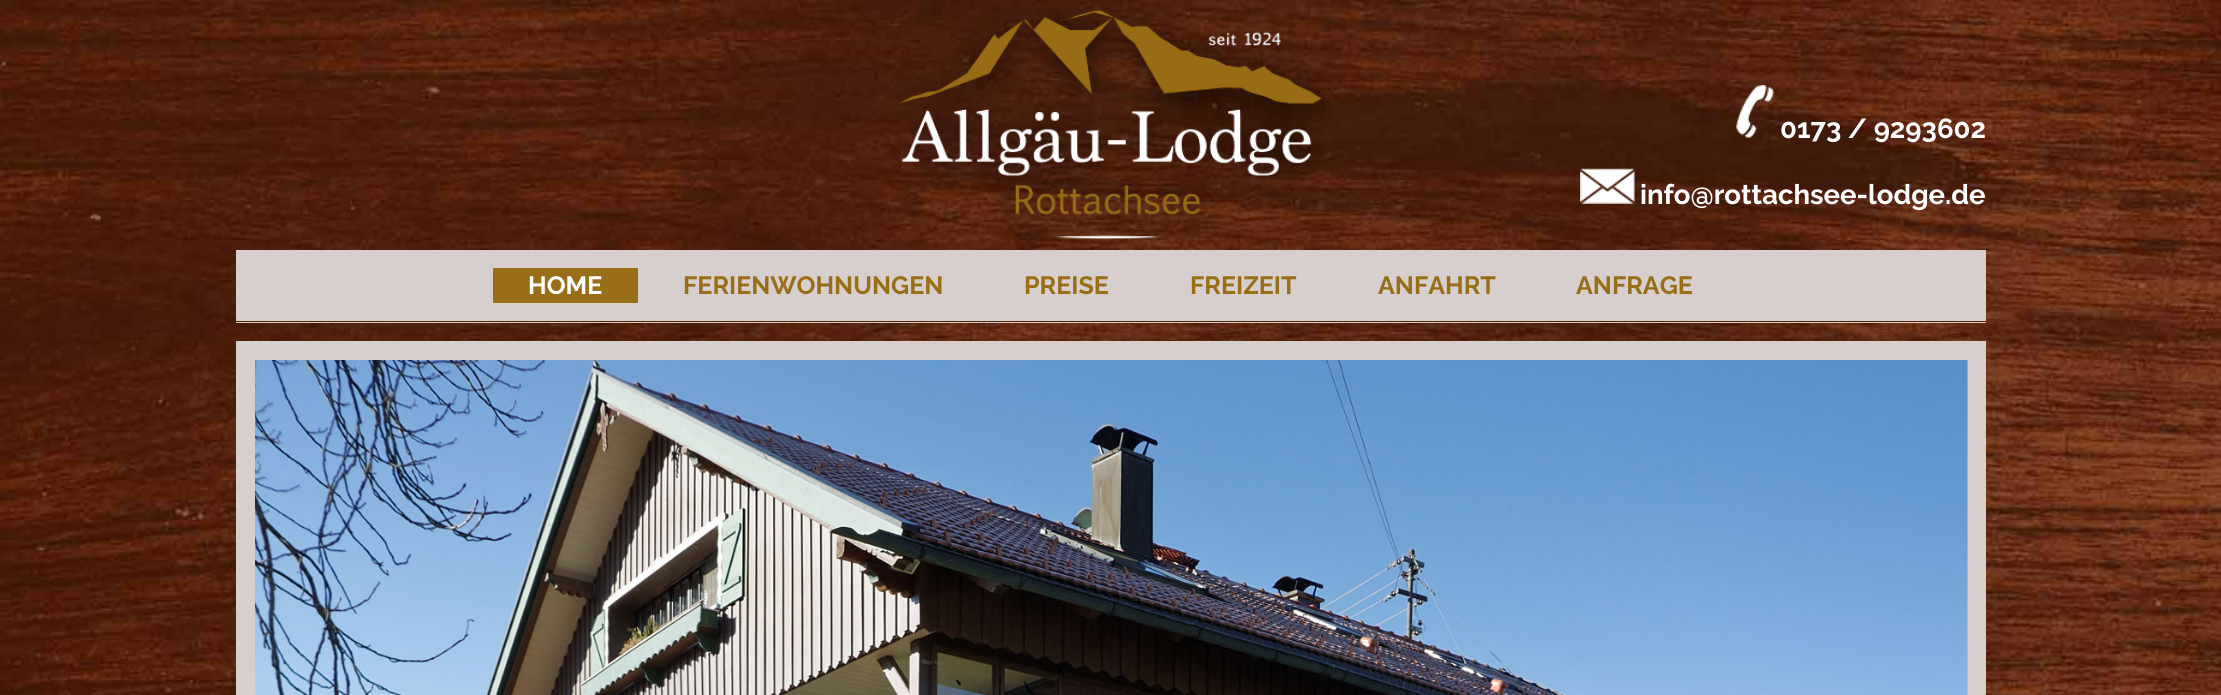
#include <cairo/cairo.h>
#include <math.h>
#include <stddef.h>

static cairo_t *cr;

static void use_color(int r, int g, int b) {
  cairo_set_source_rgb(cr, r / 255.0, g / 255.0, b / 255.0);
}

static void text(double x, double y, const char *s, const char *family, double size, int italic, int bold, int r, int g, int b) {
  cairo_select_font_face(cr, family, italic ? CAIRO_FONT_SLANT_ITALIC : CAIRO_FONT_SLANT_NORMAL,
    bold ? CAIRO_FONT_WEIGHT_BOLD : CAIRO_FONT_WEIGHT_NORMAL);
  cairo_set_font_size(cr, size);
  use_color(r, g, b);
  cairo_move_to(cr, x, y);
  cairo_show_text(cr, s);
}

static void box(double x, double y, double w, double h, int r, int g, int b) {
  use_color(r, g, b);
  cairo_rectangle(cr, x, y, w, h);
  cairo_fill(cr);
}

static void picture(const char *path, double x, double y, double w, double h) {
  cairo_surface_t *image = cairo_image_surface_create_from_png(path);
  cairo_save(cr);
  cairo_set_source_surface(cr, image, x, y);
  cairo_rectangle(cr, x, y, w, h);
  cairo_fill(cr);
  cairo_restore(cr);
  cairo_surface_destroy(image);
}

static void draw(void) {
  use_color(255, 255, 255);
  cairo_paint(cr);
  picture("img_01.png", 0, 0, 2221, 695);
  picture("img_02.png", 899, 7, 427, 237);
  picture("img_03.png", 1736, 85, 38, 53);
  picture("img_04.png", 1580, 168, 55, 36);
  box(236, 250, 1750, 73, 215, 206, 206);
  box(236, 321, 1750, 1, 85, 33, 11);
  box(493, 268, 145, 35, 152, 110, 22);
  box(236, 341, 1750, 354, 215, 206, 206);
  picture("img_05.png", 255, 360, 1713, 335);
  text(1780, 138, "0173 / 9293602", "Raleway", 27.5, 0, 1, 255, 255, 255);
  text(1640, 204, "info@rottachsee-lodge.de", "Raleway", 27.5, 0, 1, 255, 255, 255);
  text(528, 294, "HOME", "Raleway", 25, 0, 1, 255, 255, 255);
  text(683, 294, "FERIENWOHNUNGEN", "Raleway", 25, 0, 1, 152, 110, 22);
  text(1024, 294, "PREISE", "Raleway", 25, 0, 1, 152, 110, 22);
  text(1190, 294, "FREIZEIT", "Raleway", 25, 0, 1, 152, 110, 22);
  text(1378, 294, "ANFAHRT", "Raleway", 25, 0, 1, 152, 110, 22);
  text(1576, 294, "ANFRAGE", "Raleway", 25, 0, 1, 152, 110, 22);
}

int main(void) {
  cairo_surface_t *surface = cairo_image_surface_create(CAIRO_FORMAT_RGB24, 2221, 695);
  cr = cairo_create(surface);
  cairo_font_options_t *options = cairo_font_options_create();
  cairo_font_options_set_hint_metrics(options, CAIRO_HINT_METRICS_OFF);
  cairo_font_options_set_hint_style(options, CAIRO_HINT_STYLE_NONE);
  cairo_set_font_options(cr, options);
  cairo_set_miter_limit(cr, 4);
  draw();
  cairo_surface_write_to_png(surface, "out.png");
  cairo_font_options_destroy(options);
  cairo_destroy(cr);
  cairo_surface_destroy(surface);
  return 0;
}
